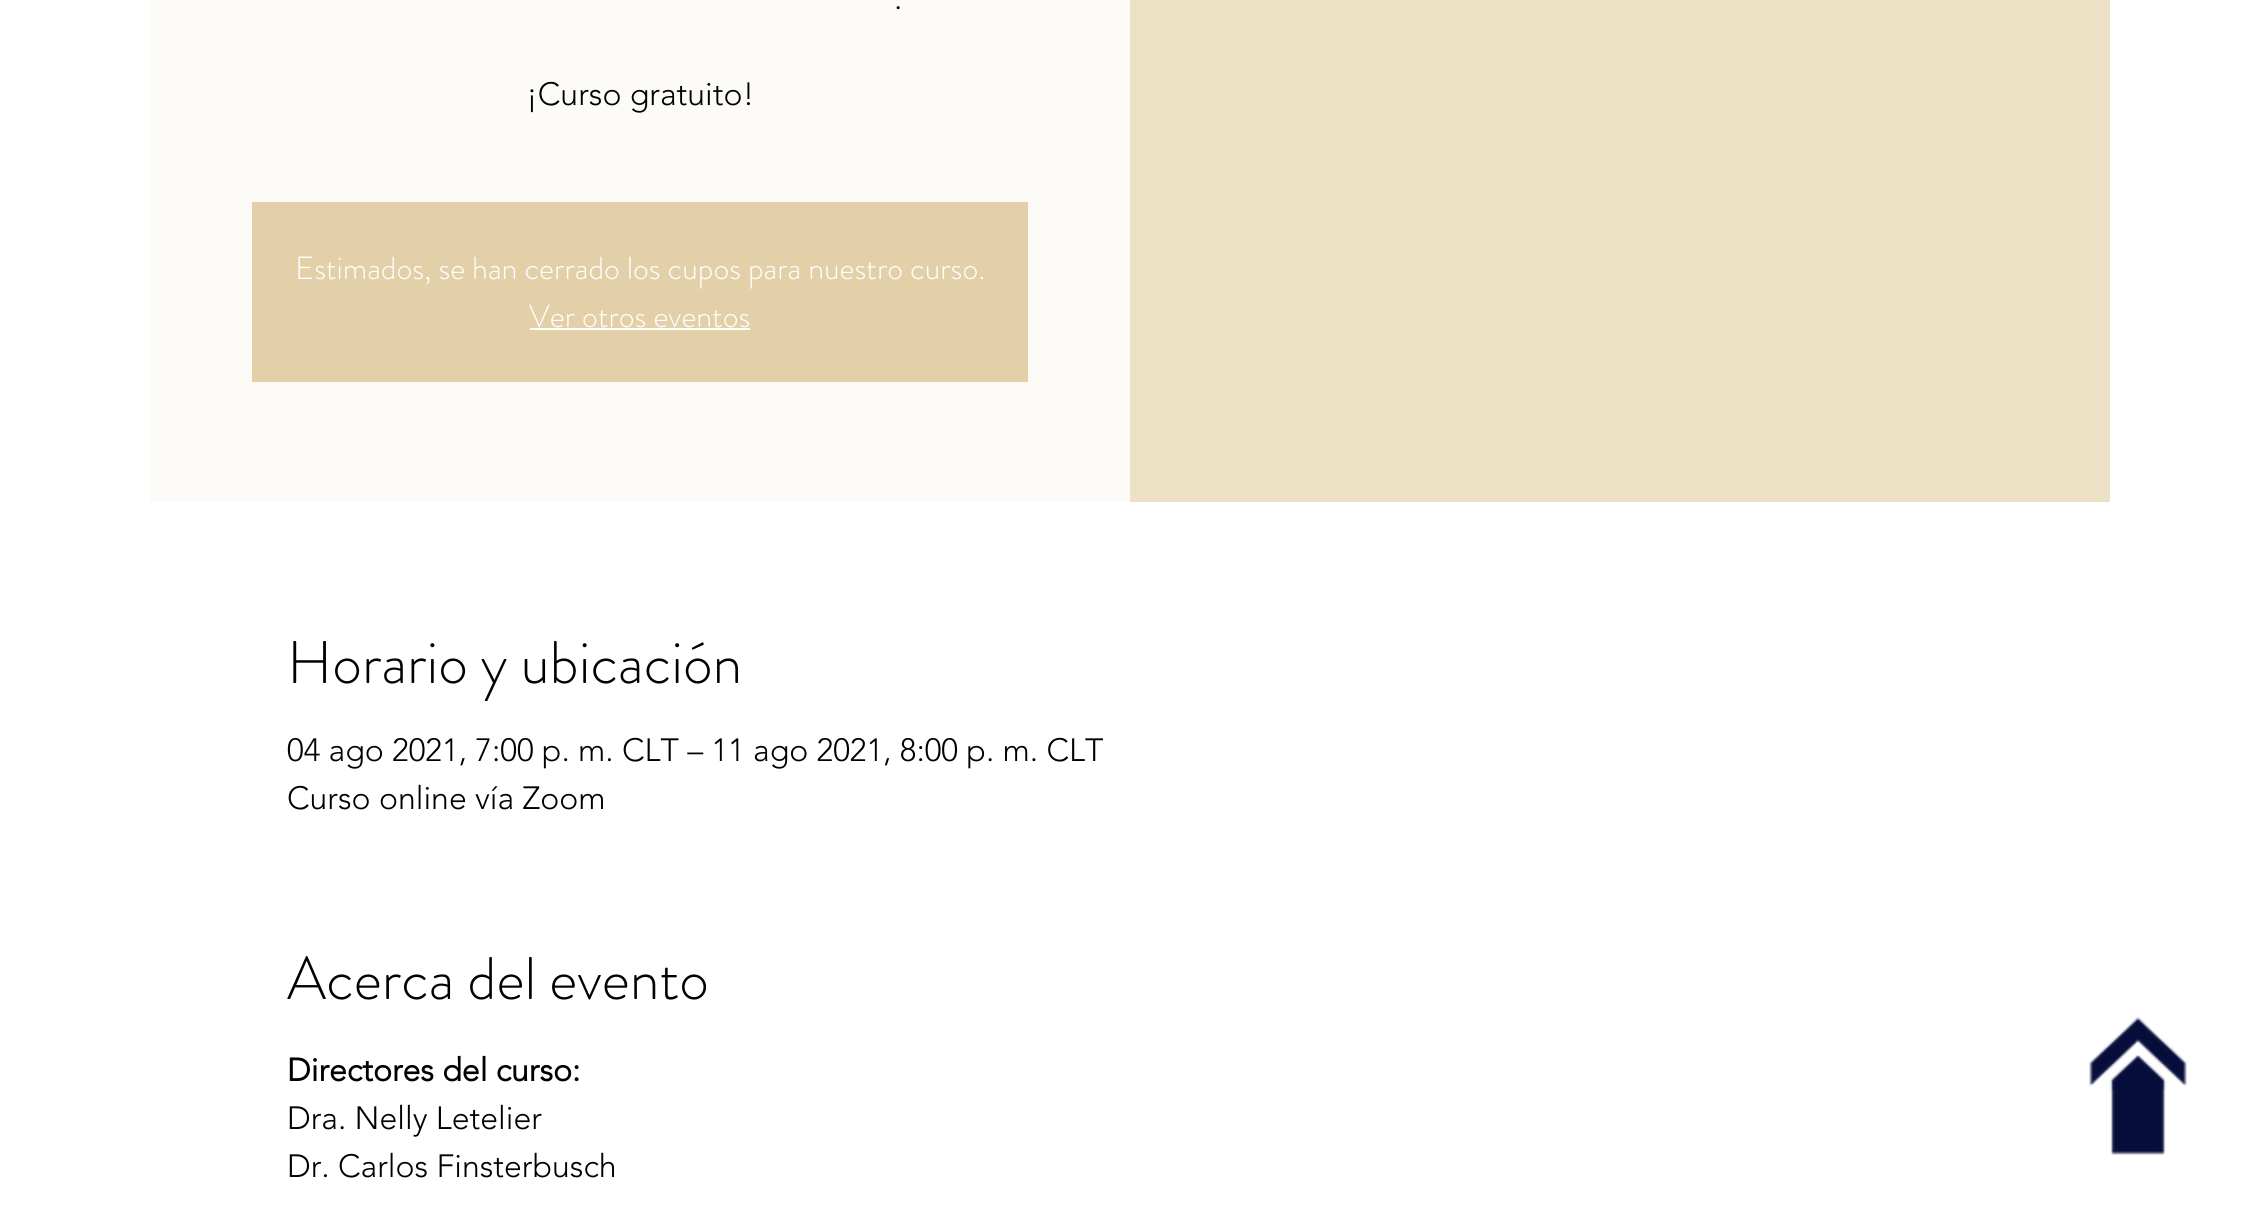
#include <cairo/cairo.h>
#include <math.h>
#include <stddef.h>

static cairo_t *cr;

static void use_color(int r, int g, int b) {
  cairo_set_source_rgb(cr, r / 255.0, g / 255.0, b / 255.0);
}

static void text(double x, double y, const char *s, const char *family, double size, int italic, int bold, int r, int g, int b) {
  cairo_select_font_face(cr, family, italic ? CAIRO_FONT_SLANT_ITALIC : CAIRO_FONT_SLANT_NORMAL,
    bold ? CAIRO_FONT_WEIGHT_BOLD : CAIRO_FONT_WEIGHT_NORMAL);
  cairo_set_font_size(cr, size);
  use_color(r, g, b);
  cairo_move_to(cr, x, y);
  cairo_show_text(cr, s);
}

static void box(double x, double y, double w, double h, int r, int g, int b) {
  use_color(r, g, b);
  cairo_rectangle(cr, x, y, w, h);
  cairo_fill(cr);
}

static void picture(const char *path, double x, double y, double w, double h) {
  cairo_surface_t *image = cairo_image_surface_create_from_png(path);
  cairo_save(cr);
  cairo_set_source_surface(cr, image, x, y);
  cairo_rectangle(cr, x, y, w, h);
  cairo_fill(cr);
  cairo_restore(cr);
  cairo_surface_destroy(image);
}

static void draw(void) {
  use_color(255, 255, 255);
  cairo_paint(cr);
  box(150, 0, 980, 502, 253, 251, 247);
  box(252, 202, 776, 180, 227, 208, 168);
  box(530, 328, 220, 2, 255, 255, 255);
  box(1130, 0, 980, 502, 236, 224, 197);
  picture("img_01.png", 2089, 1017, 98, 138);
  text(894, 9, ".", "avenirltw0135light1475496 Light", 32, 0, 0, 0, 0, 0);
  text(526, 105, "¡Curso gratuito!", "avenirltw0135light1475496 Light", 32, 0, 0, 0, 0, 0);
  text(295, 279, "Estimados, se han cerrado los cupos para nuestro curso.", "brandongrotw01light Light", 32, 0, 0, 255, 255, 255);
  text(529, 327, "Ver otros eventos", "brandongrotw01light Light", 32, 0, 0, 255, 255, 255);
  text(287, 683, "Horario y ubicación", "brandongrotw01light Light", 60, 0, 0, 0, 0, 0);
  text(287, 761, "04 ago 2021, 7:00 p. m. CLT – 11 ago 2021, 8:00 p. m. CLT", "avenirltw0135light1475496 Light", 32, 0, 0, 0, 0, 0);
  text(287, 809, "Curso online vía Zoom", "avenirltw0135light1475496 Light", 32, 0, 0, 0, 0, 0);
  text(287, 999, "Acerca del evento", "brandongrotw01light Light", 60, 0, 0, 0, 0, 0);
  text(287, 1081, "Directores del curso:", "avenirltw0135light1475496", 32, 0, 1, 0, 0, 0);
  text(287, 1129, "Dra. Nelly Letelier", "avenirltw0135light1475496 Light", 32, 0, 0, 0, 0, 0);
  text(287, 1177, "Dr. Carlos Finsterbusch", "avenirltw0135light1475496 Light", 32, 0, 0, 0, 0, 0);
}

int main(void) {
  cairo_surface_t *surface = cairo_image_surface_create(CAIRO_FORMAT_RGB24, 2260, 1209);
  cr = cairo_create(surface);
  cairo_font_options_t *options = cairo_font_options_create();
  cairo_font_options_set_hint_metrics(options, CAIRO_HINT_METRICS_OFF);
  cairo_font_options_set_hint_style(options, CAIRO_HINT_STYLE_NONE);
  cairo_set_font_options(cr, options);
  cairo_set_miter_limit(cr, 4);
  draw();
  cairo_surface_write_to_png(surface, "out.png");
  cairo_font_options_destroy(options);
  cairo_destroy(cr);
  cairo_surface_destroy(surface);
  return 0;
}
